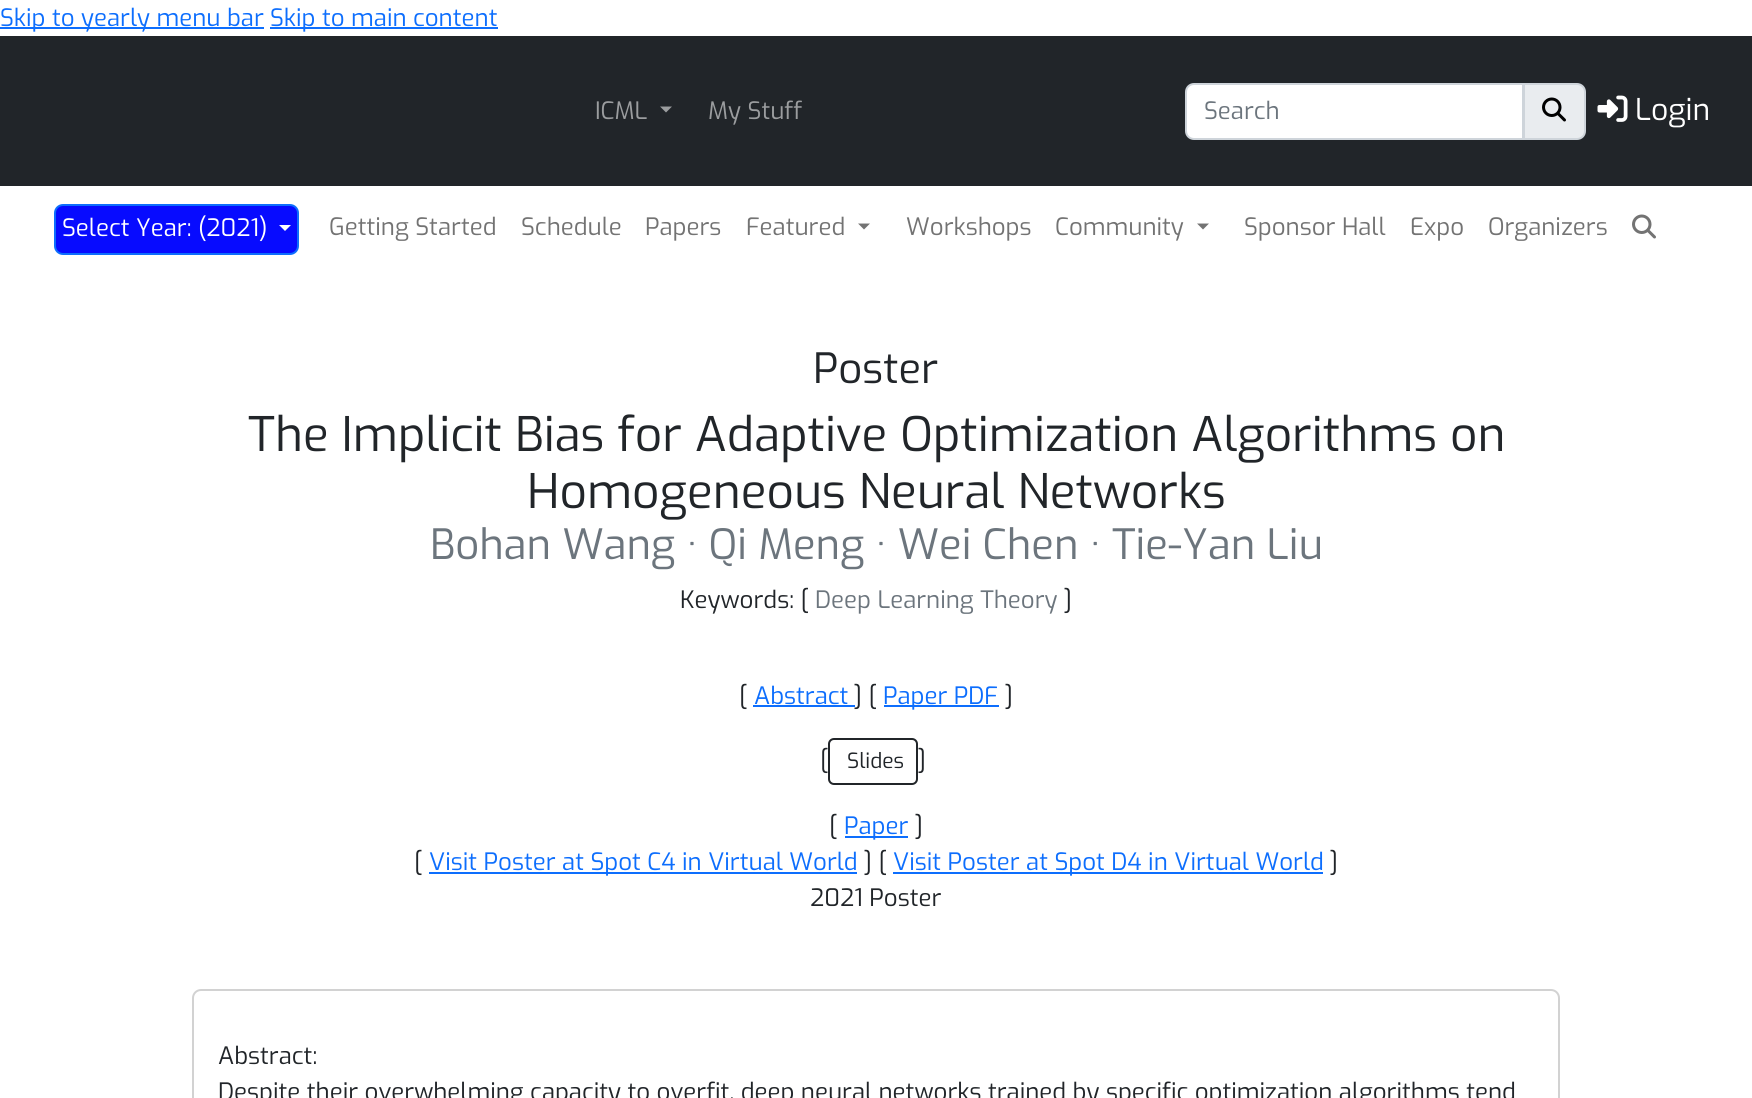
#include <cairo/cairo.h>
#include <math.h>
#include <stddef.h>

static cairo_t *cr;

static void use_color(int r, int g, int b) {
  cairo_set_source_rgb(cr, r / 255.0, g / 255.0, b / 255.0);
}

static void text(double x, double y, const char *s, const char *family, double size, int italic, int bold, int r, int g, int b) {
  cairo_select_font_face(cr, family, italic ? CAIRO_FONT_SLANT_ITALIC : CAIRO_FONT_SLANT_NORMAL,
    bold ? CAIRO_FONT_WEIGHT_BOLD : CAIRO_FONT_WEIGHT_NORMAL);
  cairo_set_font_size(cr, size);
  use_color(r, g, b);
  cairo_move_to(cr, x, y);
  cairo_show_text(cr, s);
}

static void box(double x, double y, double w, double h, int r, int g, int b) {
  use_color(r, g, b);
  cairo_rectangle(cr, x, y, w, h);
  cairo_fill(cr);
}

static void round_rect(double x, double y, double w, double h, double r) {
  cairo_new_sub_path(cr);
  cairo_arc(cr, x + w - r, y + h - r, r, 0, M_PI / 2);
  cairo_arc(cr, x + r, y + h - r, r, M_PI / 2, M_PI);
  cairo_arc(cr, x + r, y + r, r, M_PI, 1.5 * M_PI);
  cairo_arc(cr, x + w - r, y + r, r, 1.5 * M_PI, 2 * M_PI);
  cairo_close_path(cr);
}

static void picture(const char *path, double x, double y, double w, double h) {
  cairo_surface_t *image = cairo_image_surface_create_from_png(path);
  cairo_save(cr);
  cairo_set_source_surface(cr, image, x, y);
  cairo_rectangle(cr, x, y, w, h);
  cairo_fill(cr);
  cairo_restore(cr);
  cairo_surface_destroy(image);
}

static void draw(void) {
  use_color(255, 255, 255);
  cairo_paint(cr);
  box(0, 27, 264, 2, 13, 110, 253);
  box(270, 27, 228, 2, 13, 110, 253);
  box(0, 36, 1752, 150, 33, 37, 41);
  use_color(155, 157, 159);
  cairo_new_path(cr);
  cairo_move_to(cr, 660, 106.5);
  cairo_line_to(cr, 672, 106.5);
  cairo_line_to(cr, 666, 112.5);
  cairo_close_path(cr);
  cairo_fill(cr);
  use_color(233, 236, 239);
  cairo_new_path(cr);
  cairo_move_to(cr, 1524, 84);
  cairo_line_to(cr, 1577, 84);
  cairo_curve_to(cr, 1581.5, 84, 1585, 87.5, 1585, 92);
  cairo_line_to(cr, 1585, 131);
  cairo_curve_to(cr, 1585, 135.5, 1581.5, 139, 1577, 139);
  cairo_line_to(cr, 1524, 139);
  cairo_close_path(cr);
  cairo_fill_preserve(cr);
  use_color(206, 212, 218);
  cairo_stroke(cr);
  use_color(255, 255, 255);
  cairo_new_path(cr);
  cairo_move_to(cr, 1194, 84);
  cairo_line_to(cr, 1523, 84);
  cairo_line_to(cr, 1523, 139);
  cairo_line_to(cr, 1194, 139);
  cairo_curve_to(cr, 1189.5, 139, 1186, 135.5, 1186, 131);
  cairo_line_to(cr, 1186, 92);
  cairo_curve_to(cr, 1186, 87.5, 1189.5, 84, 1194, 84);
  cairo_close_path(cr);
  cairo_fill_preserve(cr);
  use_color(206, 212, 218);
  cairo_stroke(cr);
  picture("img_01.png", 1542, 97, 24, 25);
  picture("img_02.png", 1597, 95, 31, 27);
  use_color(7, 11, 255);
  round_rect(55, 205, 243, 49, 8);
  cairo_fill_preserve(cr);
  use_color(13, 110, 253);
  cairo_stroke(cr);
  use_color(255, 255, 255);
  cairo_new_path(cr);
  cairo_move_to(cr, 279, 225);
  cairo_line_to(cr, 291, 225);
  cairo_line_to(cr, 285, 231);
  cairo_close_path(cr);
  cairo_fill(cr);
  use_color(115, 115, 115);
  cairo_new_path(cr);
  cairo_move_to(cr, 858, 223.5);
  cairo_line_to(cr, 870, 223.5);
  cairo_line_to(cr, 864, 229.5);
  cairo_close_path(cr);
  cairo_fill(cr);
  cairo_new_path(cr);
  cairo_move_to(cr, 1197, 223.5);
  cairo_line_to(cr, 1209, 223.5);
  cairo_line_to(cr, 1203, 229.5);
  cairo_close_path(cr);
  cairo_fill(cr);
  picture("img_03.png", 1632, 214, 24, 25);
  box(753, 705, 102, 2, 13, 110, 253);
  box(884, 705, 115, 2, 13, 110, 253);
  round_rect(829, 739, 88, 45, 5);
  use_color(33, 37, 41);
  cairo_stroke(cr);
  box(845, 836, 63, 2, 13, 110, 253);
  box(429, 872, 428, 2, 13, 110, 253);
  box(893, 872, 430, 2, 13, 110, 253);
  round_rect(193, 990, 1366, 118, 8);
  use_color(210, 210, 210);
  cairo_stroke(cr);
  text(0, 26, "Skip to yearly menu bar", "Exo", 24, 0, 0, 13, 110, 253);
  text(270, 26, "Skip to main content", "Exo", 24, 0, 0, 13, 110, 253);
  text(595, 119, "ICML", "Exo", 24, 0, 0, 155, 157, 159);
  text(708, 119, "My Stuff", "Exo", 24, 0, 0, 155, 157, 159);
  text(1204, 119, "Search", "Exo", 24, 0, 0, 108, 117, 125);
  text(1635, 120, "Login", "Exo", 30, 0, 0, 255, 255, 255);
  text(62, 236, "Select Year: (2021)", "Exo", 24, 0, 0, 255, 255, 255);
  text(329, 235, "Getting Started", "Exo", 24, 0, 0, 115, 115, 115);
  text(521, 235, "Schedule", "Exo", 24, 0, 0, 115, 115, 115);
  text(645, 235, "Papers", "Exo", 24, 0, 0, 115, 115, 115);
  text(746, 235, "Featured", "Exo", 24, 0, 0, 115, 115, 115);
  text(906, 235, "Workshops", "Exo", 24, 0, 0, 115, 115, 115);
  text(1055, 235, "Community", "Exo", 24, 0, 0, 115, 115, 115);
  text(1244, 235, "Sponsor Hall", "Exo", 24, 0, 0, 115, 115, 115);
  text(1410, 235, "Expo", "Exo", 24, 0, 0, 115, 115, 115);
  text(1488, 235, "Organizers", "Exo", 24, 0, 0, 115, 115, 115);
  text(813, 383, "Poster", "Exo", 41.75, 0, 0, 33, 37, 41);
  text(248, 451, "The Implicit Bias for Adaptive Optimization Algorithms on", "Exo", 47.6, 0, 0, 33, 37, 41);
  text(527, 508, "Homogeneous Neural Networks", "Exo", 47.6, 0, 0, 33, 37, 41);
  text(430, 559, "Bohan Wang · Qi Meng · Wei Chen · Tie-Yan Liu", "Exo", 41.75, 0, 0, 108, 117, 125);
  text(680, 608, "Keywords: [", "Exo", 24, 0, 0, 33, 37, 41);
  text(815, 608, "Deep Learning Theory", "Exo", 24, 0, 0, 108, 117, 125);
  text(1064, 608, "]", "Exo", 24, 0, 0, 33, 37, 41);
  text(739, 704, "[", "Exo", 24, 0, 0, 33, 37, 41);
  text(754, 704, "Abstract", "Exo", 24, 0, 0, 13, 110, 253);
  text(854, 704, "] [", "Exo", 24, 0, 0, 33, 37, 41);
  text(883, 704, "Paper PDF", "Exo", 24, 0, 0, 13, 110, 253);
  text(1005, 704, "]", "Exo", 24, 0, 0, 33, 37, 41);
  text(820, 768, "[", "Exo", 24, 0, 0, 33, 37, 41);
  text(847, 768, "Slides", "Exo", 21, 0, 0, 33, 37, 41);
  text(918, 768, "]", "Exo", 24, 0, 0, 33, 37, 41);
  text(829, 834, "[", "Exo", 24, 0, 0, 33, 37, 41);
  text(844, 834, "Paper", "Exo", 24, 0, 0, 13, 110, 253);
  text(915, 834, "]", "Exo", 24, 0, 0, 33, 37, 41);
  text(414, 870, "[", "Exo", 24, 0, 0, 33, 37, 41);
  text(429, 870, "Visit Poster at Spot C4 in Virtual World", "Exo", 24, 0, 0, 13, 110, 253);
  text(864, 870, "] [", "Exo", 24, 0, 0, 33, 37, 41);
  text(893, 870, "Visit Poster at Spot D4 in Virtual World", "Exo", 24, 0, 0, 13, 110, 253);
  text(1330, 870, "]", "Exo", 24, 0, 0, 33, 37, 41);
  text(810, 906, "2021 Poster", "Exo", 24, 0, 0, 33, 37, 41);
  text(218, 1064, "Abstract:", "Exo", 24, 0, 0, 33, 37, 41);
  text(218, 1100, "Despite their overwhelming capacity to overfit, deep neural networks trained by specific optimization algorithms tend", "Exo", 24, 0, 0, 33, 37, 41);
}

int main(void) {
  cairo_surface_t *surface = cairo_image_surface_create(CAIRO_FORMAT_RGB24, 1752, 1098);
  cr = cairo_create(surface);
  cairo_font_options_t *options = cairo_font_options_create();
  cairo_font_options_set_hint_metrics(options, CAIRO_HINT_METRICS_OFF);
  cairo_font_options_set_hint_style(options, CAIRO_HINT_STYLE_NONE);
  cairo_set_font_options(cr, options);
  cairo_set_miter_limit(cr, 4);
  draw();
  cairo_surface_write_to_png(surface, "out.png");
  cairo_font_options_destroy(options);
  cairo_destroy(cr);
  cairo_surface_destroy(surface);
  return 0;
}
